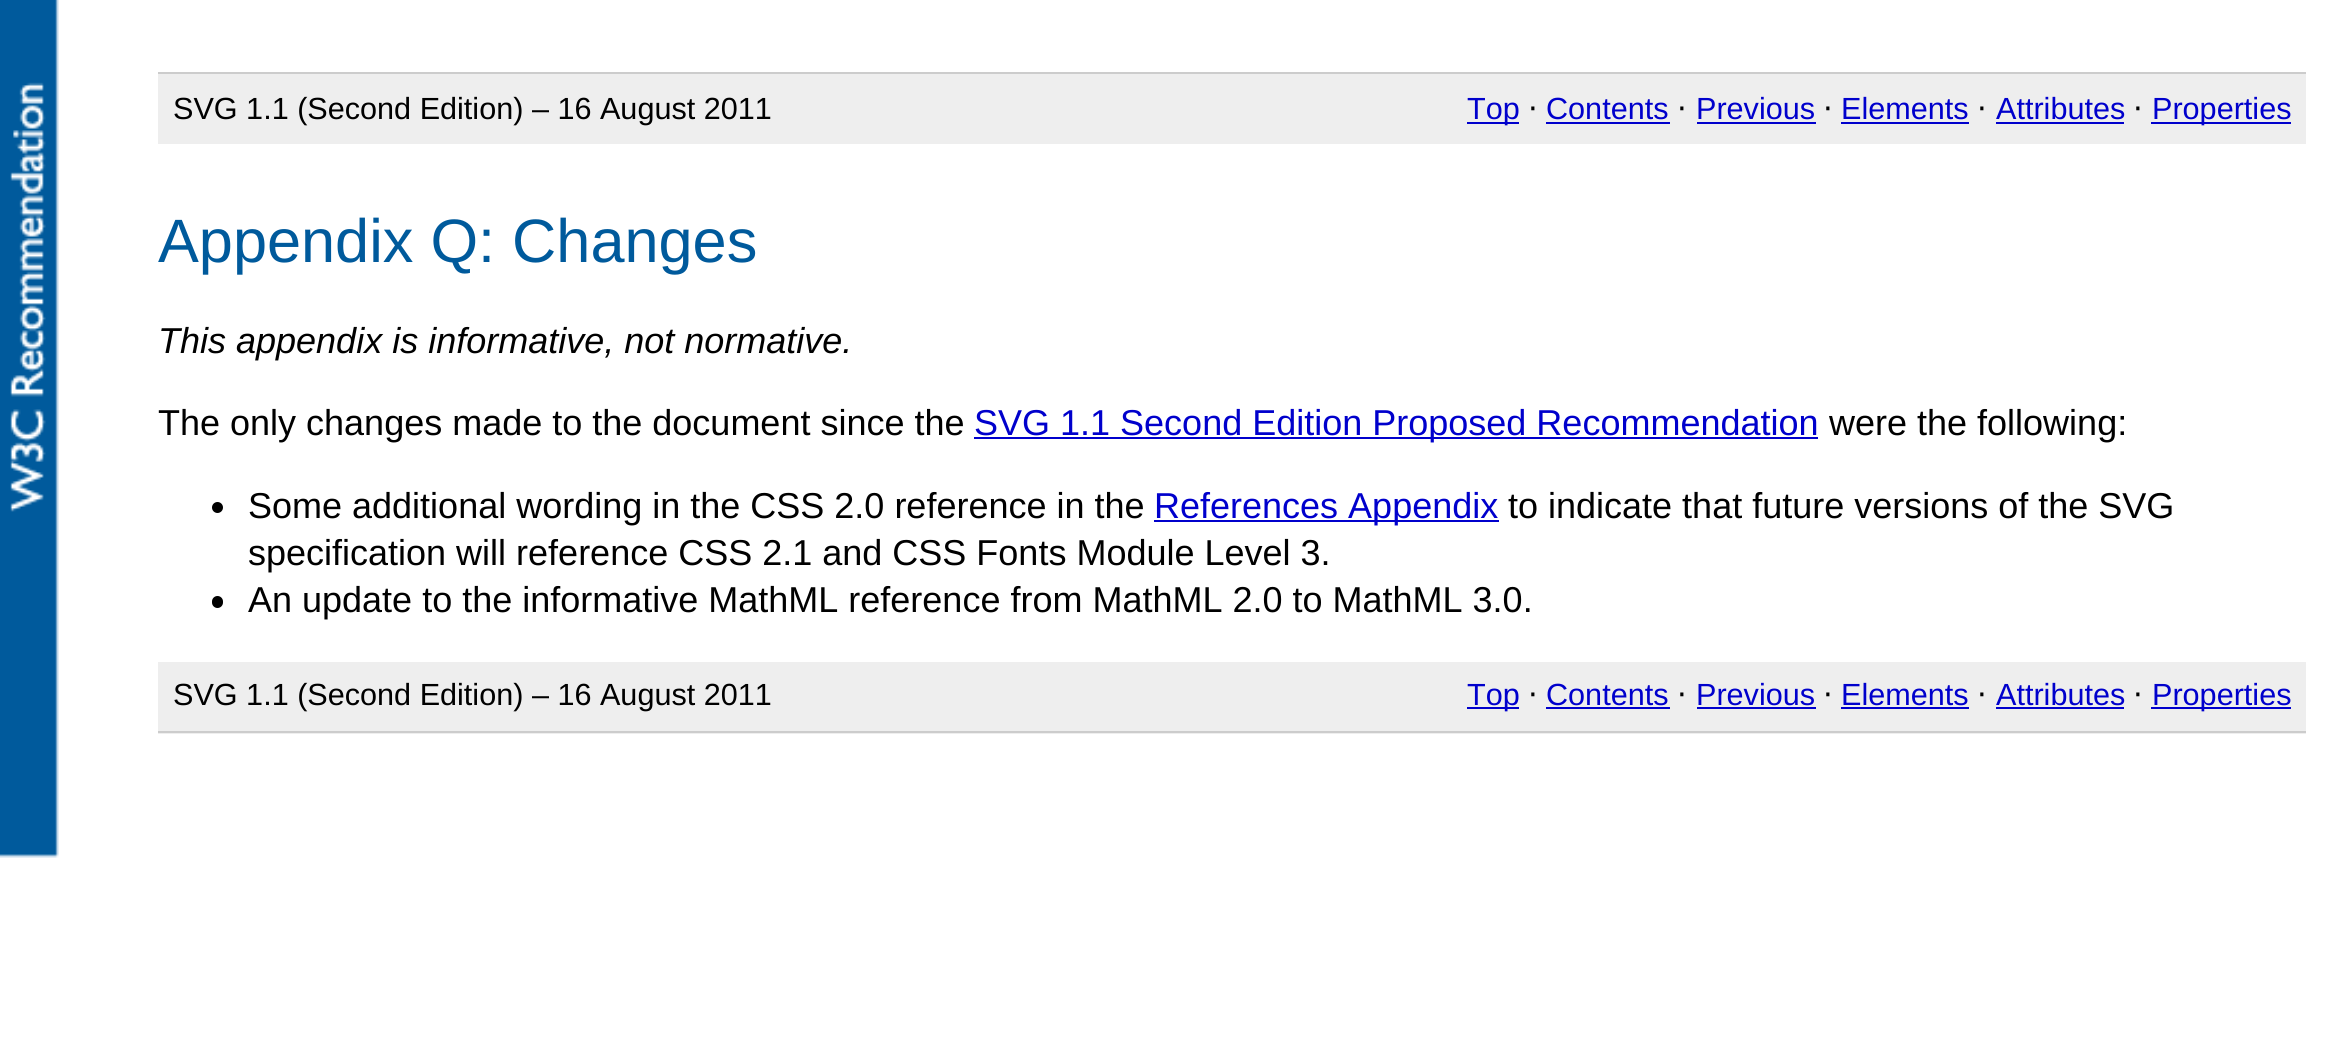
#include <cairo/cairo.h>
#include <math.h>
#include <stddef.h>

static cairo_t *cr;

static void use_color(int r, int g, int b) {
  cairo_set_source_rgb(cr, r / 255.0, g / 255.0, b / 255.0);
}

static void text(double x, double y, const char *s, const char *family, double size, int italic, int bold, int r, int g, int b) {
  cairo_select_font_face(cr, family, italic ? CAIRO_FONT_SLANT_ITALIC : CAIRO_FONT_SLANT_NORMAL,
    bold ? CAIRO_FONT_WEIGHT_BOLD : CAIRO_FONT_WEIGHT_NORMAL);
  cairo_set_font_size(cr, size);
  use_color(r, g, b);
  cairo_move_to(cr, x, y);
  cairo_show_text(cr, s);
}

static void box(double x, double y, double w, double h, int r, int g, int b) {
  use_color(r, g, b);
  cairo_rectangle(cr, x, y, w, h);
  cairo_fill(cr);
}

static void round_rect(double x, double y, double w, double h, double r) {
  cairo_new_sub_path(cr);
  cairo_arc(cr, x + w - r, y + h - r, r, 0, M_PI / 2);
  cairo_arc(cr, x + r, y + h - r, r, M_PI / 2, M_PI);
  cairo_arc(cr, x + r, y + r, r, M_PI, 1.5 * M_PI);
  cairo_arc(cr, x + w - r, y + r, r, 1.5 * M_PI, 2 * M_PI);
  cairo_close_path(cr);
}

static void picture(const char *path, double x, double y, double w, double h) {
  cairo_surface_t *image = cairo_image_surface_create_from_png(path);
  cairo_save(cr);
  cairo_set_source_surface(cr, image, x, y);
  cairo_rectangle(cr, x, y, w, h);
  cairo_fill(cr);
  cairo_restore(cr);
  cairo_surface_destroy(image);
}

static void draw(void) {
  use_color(255, 255, 255);
  cairo_paint(cr);
  picture("img_01.png", 0, 0, 59, 858);
  box(158, 74, 2148, 70, 238, 238, 238);
  box(158, 72, 2148, 2, 204, 204, 204);
  box(1467, 122, 52, 2, 0, 0, 204);
  box(1546, 122, 124, 2, 0, 0, 204);
  box(1697, 122, 119, 2, 0, 0, 204);
  box(1841, 122, 128, 2, 0, 0, 204);
  box(1996, 122, 128, 2, 0, 0, 204);
  box(2151, 122, 140, 2, 0, 0, 204);
  box(974, 437, 844, 2, 0, 0, 204);
  use_color(0, 0, 0);
  cairo_arc(cr, 217.5, 507.5, 5.5, 0, 2 * M_PI);
  cairo_fill(cr);
  box(1154, 520, 345, 2, 0, 0, 204);
  use_color(0, 0, 0);
  round_rect(212, 596, 11, 12, 5.5);
  cairo_fill(cr);
  box(158, 662, 2148, 72, 238, 238, 238);
  box(158, 731, 2148, 2, 204, 204, 204);
  box(1467, 707, 52, 2, 0, 0, 204);
  box(1546, 707, 124, 2, 0, 0, 204);
  box(1697, 707, 119, 2, 0, 0, 204);
  box(1841, 707, 128, 2, 0, 0, 204);
  box(1996, 707, 128, 2, 0, 0, 204);
  box(2151, 707, 140, 2, 0, 0, 204);
  text(173, 119, "SVG 1.1 (Second Edition) – 16 August 2011", "Liberation Sans", 30.6, 0, 0, 0, 0, 0);
  text(1467, 119, "Top", "Liberation Sans", 30.6, 0, 0, 0, 0, 204);
  text(1528, 119, "⋅", "DejaVu Sans", 30.6, 0, 0, 0, 0, 0);
  text(1546, 119, "Contents", "Liberation Sans", 30.6, 0, 0, 0, 0, 204);
  text(1677, 119, "⋅", "DejaVu Sans", 30.6, 0, 0, 0, 0, 0);
  text(1696, 119, "Previous", "Liberation Sans", 30.6, 0, 0, 0, 0, 204);
  text(1823, 119, "⋅", "DejaVu Sans", 30.6, 0, 0, 0, 0, 0);
  text(1841, 119, "Elements", "Liberation Sans", 30.6, 0, 0, 0, 0, 204);
  text(1977, 119, "⋅", "DejaVu Sans", 30.6, 0, 0, 0, 0, 0);
  text(1996, 119, "Attributes", "Liberation Sans", 30.6, 0, 0, 0, 0, 204);
  text(2133, 119, "⋅", "DejaVu Sans", 30.6, 0, 0, 0, 0, 0);
  text(2152, 119, "Properties", "Liberation Sans", 30.6, 0, 0, 0, 0, 204);
  text(158, 262, "Appendix Q: Changes", "Liberation Sans", 61.25, 0, 0, 0, 90, 156);
  text(158, 353, "This appendix is informative, not normative.", "Liberation Sans", 36, 1, 0, 0, 0, 0);
  text(158, 435, "The only changes made to the document since the", "Liberation Sans", 36, 0, 0, 0, 0, 0);
  text(974, 435, "SVG 1.1 Second Edition Proposed Recommendation", "Liberation Sans", 36, 0, 0, 0, 0, 204);
  text(1829, 435, "were the following:", "Liberation Sans", 36, 0, 0, 0, 0, 0);
  text(248, 518, "Some additional wording in the CSS 2.0 reference in the", "Liberation Sans", 36, 0, 0, 0, 0, 0);
  text(1154, 518, "References Appendix", "Liberation Sans", 36, 0, 0, 0, 0, 204);
  text(1508, 518, "to indicate that future versions of the SVG", "Liberation Sans", 36, 0, 0, 0, 0, 0);
  text(248, 565, "specification will reference CSS 2.1 and CSS Fonts Module Level 3.", "Liberation Sans", 36, 0, 0, 0, 0, 0);
  text(248, 612, "An update to the informative MathML reference from MathML 2.0 to MathML 3.0.", "Liberation Sans", 36, 0, 0, 0, 0, 0);
  text(173, 705, "SVG 1.1 (Second Edition) – 16 August 2011", "Liberation Sans", 30.6, 0, 0, 0, 0, 0);
  text(1467, 705, "Top", "Liberation Sans", 30.6, 0, 0, 0, 0, 204);
  text(1528, 705, "⋅", "DejaVu Sans", 30.6, 0, 0, 0, 0, 0);
  text(1546, 705, "Contents", "Liberation Sans", 30.6, 0, 0, 0, 0, 204);
  text(1677, 705, "⋅", "DejaVu Sans", 30.6, 0, 0, 0, 0, 0);
  text(1696, 705, "Previous", "Liberation Sans", 30.6, 0, 0, 0, 0, 204);
  text(1823, 705, "⋅", "DejaVu Sans", 30.6, 0, 0, 0, 0, 0);
  text(1841, 705, "Elements", "Liberation Sans", 30.6, 0, 0, 0, 0, 204);
  text(1977, 705, "⋅", "DejaVu Sans", 30.6, 0, 0, 0, 0, 0);
  text(1996, 705, "Attributes", "Liberation Sans", 30.6, 0, 0, 0, 0, 204);
  text(2133, 705, "⋅", "DejaVu Sans", 30.6, 0, 0, 0, 0, 0);
  text(2152, 705, "Properties", "Liberation Sans", 30.6, 0, 0, 0, 0, 204);
}

int main(void) {
  cairo_surface_t *surface = cairo_image_surface_create(CAIRO_FORMAT_RGB24, 2342, 1049);
  cr = cairo_create(surface);
  cairo_font_options_t *options = cairo_font_options_create();
  cairo_font_options_set_hint_metrics(options, CAIRO_HINT_METRICS_OFF);
  cairo_font_options_set_hint_style(options, CAIRO_HINT_STYLE_NONE);
  cairo_set_font_options(cr, options);
  cairo_set_miter_limit(cr, 4);
  draw();
  cairo_surface_write_to_png(surface, "out.png");
  cairo_font_options_destroy(options);
  cairo_destroy(cr);
  cairo_surface_destroy(surface);
  return 0;
}
